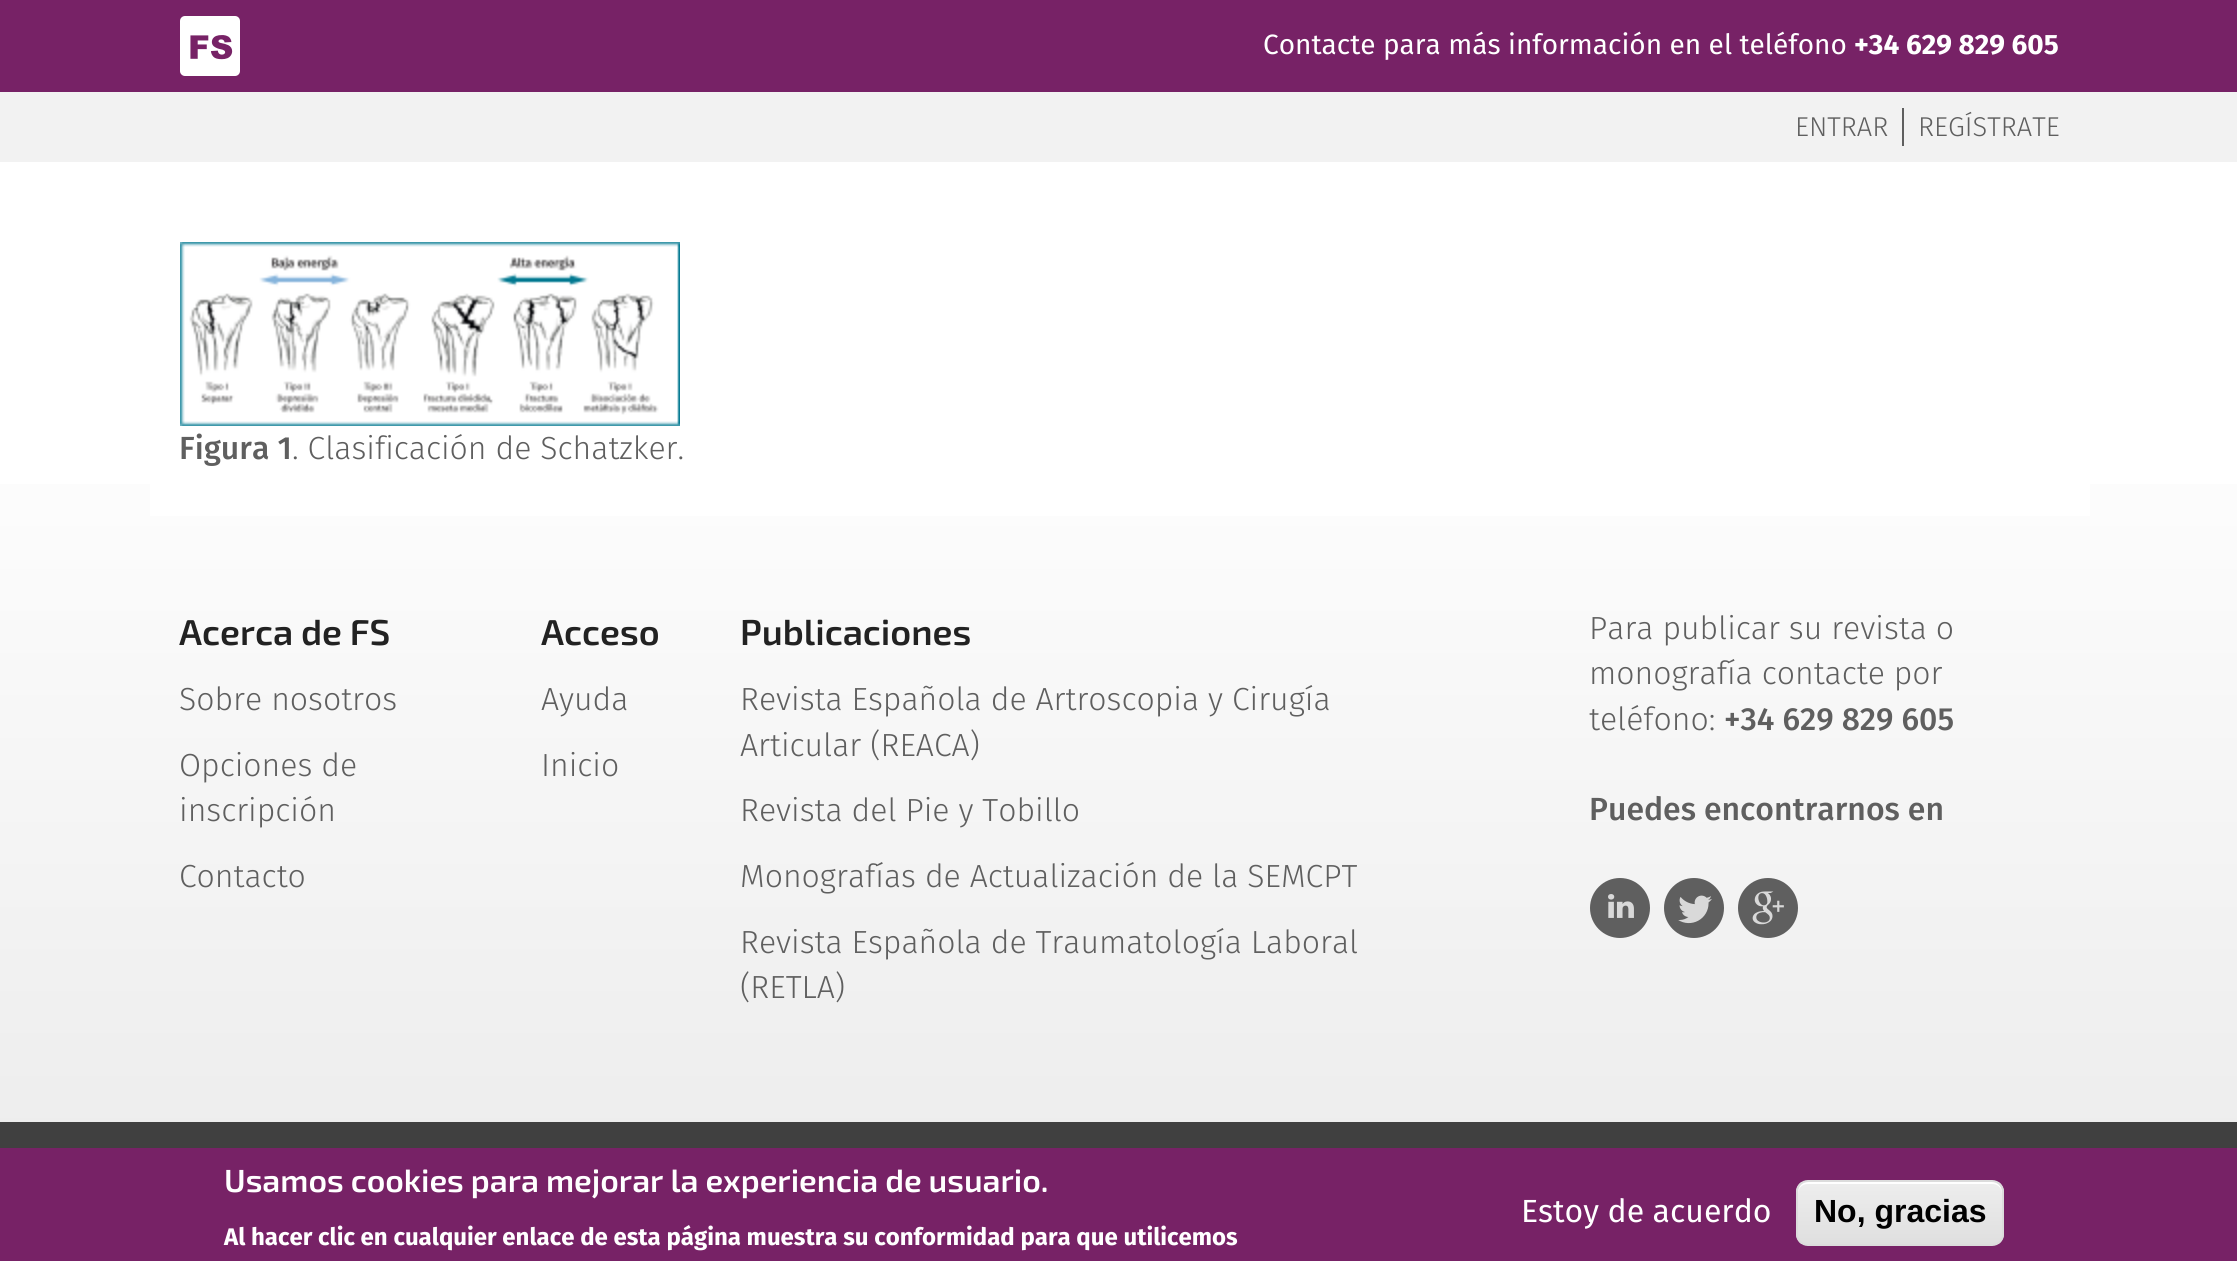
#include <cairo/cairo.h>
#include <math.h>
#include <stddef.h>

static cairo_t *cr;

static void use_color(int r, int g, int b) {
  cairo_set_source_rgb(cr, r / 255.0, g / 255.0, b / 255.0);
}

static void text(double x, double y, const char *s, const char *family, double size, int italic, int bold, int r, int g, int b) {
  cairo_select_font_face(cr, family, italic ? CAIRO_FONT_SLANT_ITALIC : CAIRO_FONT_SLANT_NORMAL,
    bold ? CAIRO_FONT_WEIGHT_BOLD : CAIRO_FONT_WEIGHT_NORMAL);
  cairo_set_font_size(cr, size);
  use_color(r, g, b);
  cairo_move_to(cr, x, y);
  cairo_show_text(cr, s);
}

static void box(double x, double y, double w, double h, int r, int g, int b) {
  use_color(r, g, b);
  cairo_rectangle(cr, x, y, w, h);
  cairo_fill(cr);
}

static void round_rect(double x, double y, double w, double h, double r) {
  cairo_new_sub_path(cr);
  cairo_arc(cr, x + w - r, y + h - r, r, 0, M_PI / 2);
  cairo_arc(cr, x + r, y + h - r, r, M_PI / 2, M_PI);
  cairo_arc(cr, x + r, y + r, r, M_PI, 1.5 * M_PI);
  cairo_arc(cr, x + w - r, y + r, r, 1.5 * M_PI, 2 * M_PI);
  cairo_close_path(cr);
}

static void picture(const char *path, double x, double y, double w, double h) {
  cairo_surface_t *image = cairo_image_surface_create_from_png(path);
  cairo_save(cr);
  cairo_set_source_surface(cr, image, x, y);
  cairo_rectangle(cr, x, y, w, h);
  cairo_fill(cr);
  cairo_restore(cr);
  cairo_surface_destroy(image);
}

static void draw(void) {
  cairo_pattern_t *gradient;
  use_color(255, 255, 255);
  cairo_paint(cr);
  gradient = cairo_pattern_create_linear(1119, 0, 1119, 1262);
  cairo_pattern_add_color_stop_rgba(gradient, 0.3, 1, 1, 1, 1);
  cairo_pattern_add_color_stop_rgba(gradient, 1, 0.918, 0.918, 0.918, 1);
  cairo_set_source(cr, gradient);
  cairo_pattern_destroy(gradient);
  cairo_rectangle(cr, 0, 484, 2237, 638);
  cairo_fill(cr);
  box(0, 0, 2237, 92, 119, 34, 102);
  picture("img_01.png", 180, 16, 60, 60);
  box(0, 92, 2237, 70, 242, 242, 242);
  box(1902, 108, 2, 38, 95, 95, 95);
  box(150, 484, 1940, 32, 255, 255, 255);
  picture("img_02.png", 180, 242, 500, 184);
  picture("img_03.png", 1590, 878, 60, 60);
  picture("img_04.png", 1664, 878, 60, 60);
  picture("img_05.png", 1738, 878, 60, 60);
  box(0, 1122, 2237, 26, 64, 64, 64);
  box(0, 1148, 2237, 113, 119, 34, 102);
  cairo_save(cr);
  round_rect(1796, 1180, 208, 66, 12);
  cairo_clip(cr);
  gradient = cairo_pattern_create_linear(1900, 1182, 1900, 1244);
  cairo_pattern_add_color_stop_rgba(gradient, 0.05, 0.929, 0.929, 0.929, 1);
  cairo_pattern_add_color_stop_rgba(gradient, 1, 0.875, 0.875, 0.875, 1);
  cairo_set_source(cr, gradient);
  cairo_pattern_destroy(gradient);
  cairo_rectangle(cr, 1796, 1182, 208, 62);
  cairo_fill(cr);
  cairo_restore(cr);
  use_color(255, 255, 255);
  cairo_new_path(cr);
  cairo_move_to(cr, 1808, 1184);
  cairo_line_to(cr, 1992, 1184);
  cairo_curve_to(cr, 1998, 1184, 2002, 1188, 2002, 1194);
  cairo_line_to(cr, 2002, 1192);
  cairo_curve_to(cr, 2002, 1186, 1998, 1182, 1992, 1182);
  cairo_line_to(cr, 1808, 1182);
  cairo_curve_to(cr, 1802, 1182, 1798, 1186, 1798, 1192);
  cairo_line_to(cr, 1798, 1194);
  cairo_curve_to(cr, 1798, 1188, 1802, 1184, 1808, 1184);
  cairo_close_path(cr);
  cairo_fill(cr);
  round_rect(1797, 1181, 206, 64, 11);
  use_color(220, 220, 220);
  cairo_stroke(cr);
  text(1263, 54, "Contacte para más información en el teléfono", "Fira Sans", 28, 0, 0, 255, 255, 255);
  text(1854, 54, "+34 629 829 605", "Fira Sans", 28, 0, 1, 255, 255, 255);
  text(1795, 136, "ENTRAR", "Fira Sans Light", 27.25, 0, 0, 95, 95, 95);
  text(1918, 136, "REGÍSTRATE", "Fira Sans Light", 27.25, 0, 0, 95, 95, 95);
  text(179, 459, "Figura 1", "Fira Sans Medium", 32, 0, 0, 95, 95, 95);
  text(292, 459, ". Clasificación de Schatzker.", "Fira Sans Light", 32, 0, 0, 95, 95, 95);
  text(179, 645, "Acerca de FS", "Exo 2 SemiBold", 36, 0, 0, 34, 34, 34);
  text(179, 710, "Sobre nosotros", "Fira Sans Light", 32, 0, 0, 95, 95, 95);
  text(179, 776, "Opciones de", "Fira Sans Light", 32, 0, 0, 95, 95, 95);
  text(179, 821, "inscripción", "Fira Sans Light", 32, 0, 0, 95, 95, 95);
  text(179, 887, "Contacto", "Fira Sans Light", 32, 0, 0, 95, 95, 95);
  text(541, 645, "Acceso", "Exo 2 SemiBold", 36, 0, 0, 34, 34, 34);
  text(541, 710, "Ayuda", "Fira Sans Light", 32, 0, 0, 95, 95, 95);
  text(541, 776, "Inicio", "Fira Sans Light", 32, 0, 0, 95, 95, 95);
  text(740, 645, "Publicaciones", "Exo 2 SemiBold", 36, 0, 0, 34, 34, 34);
  text(740, 710, "Revista Española de Artroscopia y Cirugía", "Fira Sans Light", 32, 0, 0, 95, 95, 95);
  text(740, 756, "Articular (REACA)", "Fira Sans Light", 32, 0, 0, 95, 95, 95);
  text(740, 821, "Revista del Pie y Tobillo", "Fira Sans Light", 32, 0, 0, 95, 95, 95);
  text(740, 887, "Monografías de Actualización de la SEMCPT", "Fira Sans Light", 32, 0, 0, 95, 95, 95);
  text(740, 953, "Revista Española de Traumatología Laboral", "Fira Sans Light", 32, 0, 0, 95, 95, 95);
  text(740, 998, "(RETLA)", "Fira Sans Light", 32, 0, 0, 95, 95, 95);
  text(1589, 639, "Para publicar su revista o", "Fira Sans Light", 32, 0, 0, 95, 95, 95);
  text(1589, 684, "monografía contacte por", "Fira Sans Light", 32, 0, 0, 95, 95, 95);
  text(1589, 730, "teléfono:", "Fira Sans Light", 32, 0, 0, 95, 95, 95);
  text(1724, 730, "+34 629 829 605", "Fira Sans Medium", 32, 0, 0, 95, 95, 95);
  text(1589, 820, "Puedes encontrarnos en", "Fira Sans Medium", 32, 0, 0, 95, 95, 95);
  text(224, 1192, "Usamos cookies para mejorar la experiencia de usuario.", "Exo 2 SemiBold", 32, 0, 0, 255, 255, 255);
  text(224, 1245, "Al hacer clic en cualquier enlace de esta página muestra su conformidad para que utilicemos", "Fira Sans", 24, 0, 1, 255, 255, 255);
  text(1521, 1222, "Estoy de acuerdo", "Fira Sans", 32, 0, 0, 255, 255, 255);
  text(1814, 1222, "No, gracias", "Liberation Sans", 32, 0, 1, 0, 0, 0);
}

int main(void) {
  cairo_surface_t *surface = cairo_image_surface_create(CAIRO_FORMAT_RGB24, 2237, 1261);
  cr = cairo_create(surface);
  cairo_font_options_t *options = cairo_font_options_create();
  cairo_font_options_set_hint_metrics(options, CAIRO_HINT_METRICS_OFF);
  cairo_font_options_set_hint_style(options, CAIRO_HINT_STYLE_NONE);
  cairo_set_font_options(cr, options);
  cairo_set_miter_limit(cr, 4);
  draw();
  cairo_surface_write_to_png(surface, "out.png");
  cairo_font_options_destroy(options);
  cairo_destroy(cr);
  cairo_surface_destroy(surface);
  return 0;
}
